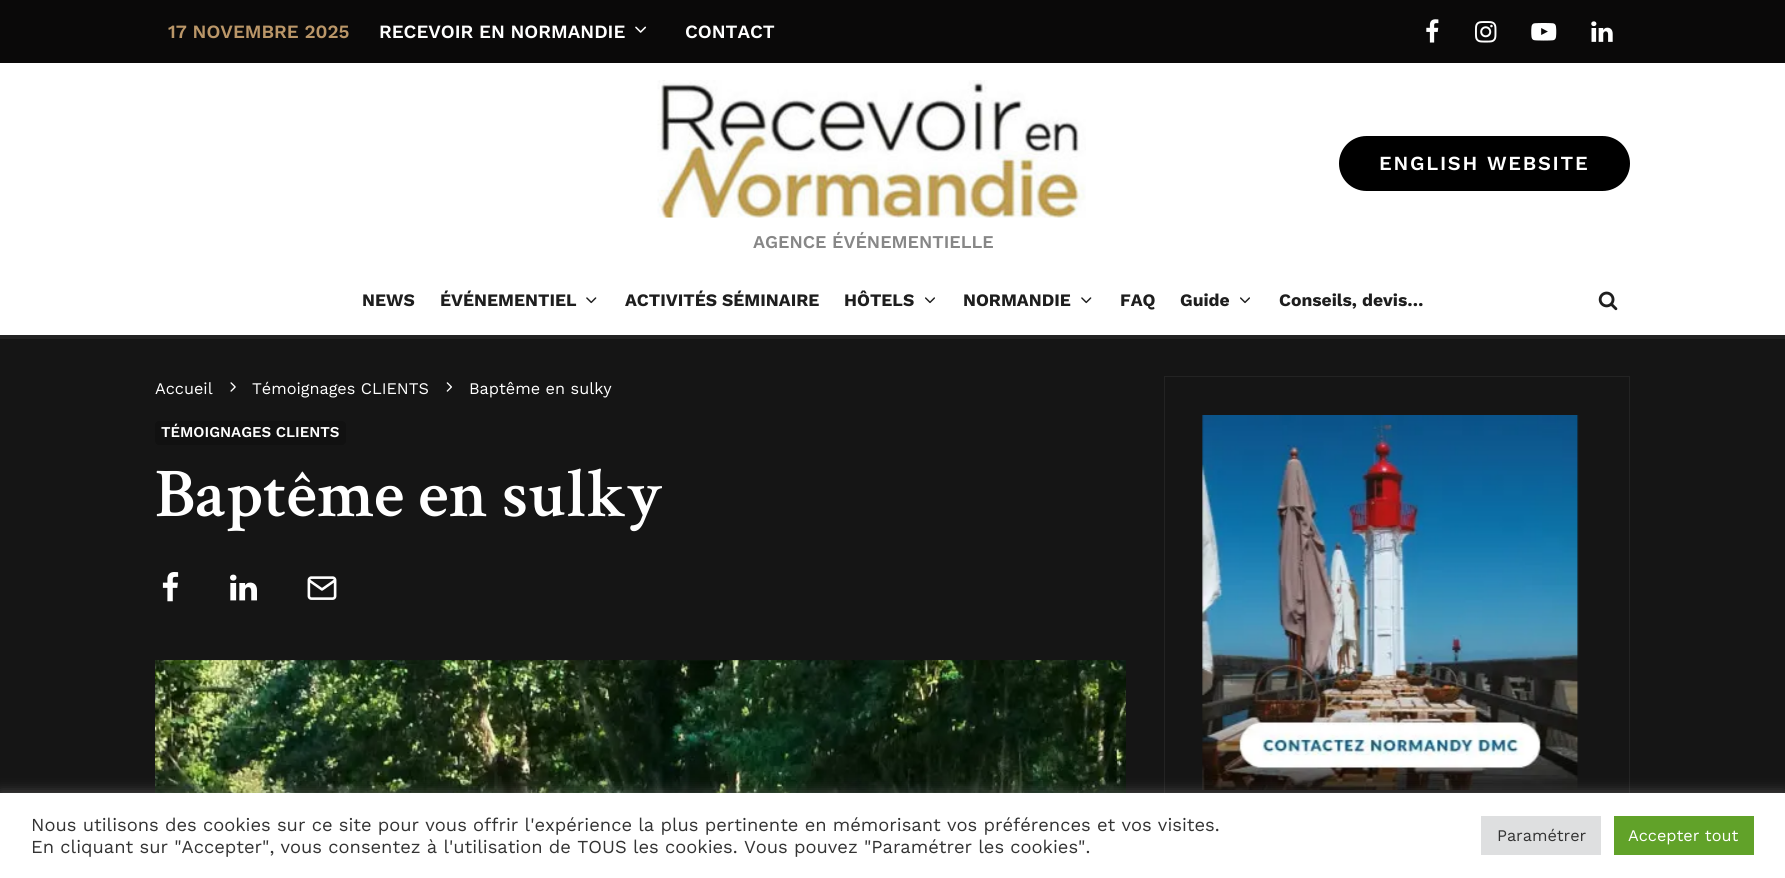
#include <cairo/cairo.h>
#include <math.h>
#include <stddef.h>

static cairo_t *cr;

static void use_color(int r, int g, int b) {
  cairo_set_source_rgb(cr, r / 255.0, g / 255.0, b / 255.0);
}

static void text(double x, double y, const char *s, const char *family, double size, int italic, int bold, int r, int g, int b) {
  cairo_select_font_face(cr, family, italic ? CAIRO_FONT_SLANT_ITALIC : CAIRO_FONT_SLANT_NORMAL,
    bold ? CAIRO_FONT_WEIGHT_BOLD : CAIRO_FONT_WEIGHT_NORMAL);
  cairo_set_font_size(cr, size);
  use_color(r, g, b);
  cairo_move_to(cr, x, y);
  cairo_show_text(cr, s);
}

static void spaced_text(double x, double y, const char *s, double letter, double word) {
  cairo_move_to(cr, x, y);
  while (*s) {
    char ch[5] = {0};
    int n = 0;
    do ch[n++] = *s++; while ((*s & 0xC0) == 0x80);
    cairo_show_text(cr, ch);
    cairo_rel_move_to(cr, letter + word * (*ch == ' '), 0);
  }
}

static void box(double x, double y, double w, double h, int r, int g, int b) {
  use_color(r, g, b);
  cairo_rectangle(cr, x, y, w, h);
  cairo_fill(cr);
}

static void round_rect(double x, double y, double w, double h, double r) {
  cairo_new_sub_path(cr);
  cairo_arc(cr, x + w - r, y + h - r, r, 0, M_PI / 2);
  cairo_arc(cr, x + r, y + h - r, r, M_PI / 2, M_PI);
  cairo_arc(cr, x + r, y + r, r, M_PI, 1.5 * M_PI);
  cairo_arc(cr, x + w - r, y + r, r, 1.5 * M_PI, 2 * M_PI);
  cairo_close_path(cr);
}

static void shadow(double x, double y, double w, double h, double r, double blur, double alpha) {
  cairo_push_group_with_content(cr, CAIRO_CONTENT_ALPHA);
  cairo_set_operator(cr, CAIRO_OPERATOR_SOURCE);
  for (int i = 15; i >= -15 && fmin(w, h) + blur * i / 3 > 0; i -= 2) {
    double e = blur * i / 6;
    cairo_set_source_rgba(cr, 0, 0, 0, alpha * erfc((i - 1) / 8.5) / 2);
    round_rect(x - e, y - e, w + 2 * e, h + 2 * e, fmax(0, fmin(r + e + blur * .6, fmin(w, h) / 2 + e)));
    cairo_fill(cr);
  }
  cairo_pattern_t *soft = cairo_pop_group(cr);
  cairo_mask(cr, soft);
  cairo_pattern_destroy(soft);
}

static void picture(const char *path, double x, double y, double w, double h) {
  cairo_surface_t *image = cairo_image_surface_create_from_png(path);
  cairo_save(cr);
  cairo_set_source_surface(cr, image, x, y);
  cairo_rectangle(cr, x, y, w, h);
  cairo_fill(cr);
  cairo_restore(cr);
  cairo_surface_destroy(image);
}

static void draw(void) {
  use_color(255, 255, 255);
  cairo_paint(cr);
  box(0, 0, 1785, 63, 10, 9, 9);
  picture("img_01.png", 635, 26, 12, 7);
  picture("img_02.png", 1426, 19, 13, 24);
  picture("img_03.png", 1475, 21, 22, 22);
  picture("img_04.png", 1531, 23, 26, 18);
  picture("img_05.png", 1591, 21, 22, 21);
  use_color(0, 0, 0);
  round_rect(1339, 136, 291, 55, 27.5);
  cairo_fill(cr);
  picture("img_06.png", 657, 80, 429, 138);
  box(0, 335, 1785, 4, 35, 35, 35);
  picture("img_07.png", 586, 297, 11, 7);
  picture("img_08.png", 925, 297, 10, 7);
  picture("img_07.png", 1081, 297, 11, 7);
  picture("img_08.png", 1240, 297, 10, 7);
  picture("img_09.png", 1598, 291, 20, 20);
  box(0, 339, 1785, 454, 21, 21, 21);
  picture("img_10.png", 230, 382, 6, 10);
  picture("img_11.png", 446, 382, 6, 10);
  use_color(17, 17, 17);
  round_rect(155, 421, 191, 24, 4);
  cairo_fill(cr);
  picture("img_12.png", 162, 572, 17, 30);
  picture("img_13.png", 230, 574, 27, 27);
  picture("img_14.png", 307, 576, 30, 24);
  picture("img_15.png", 155, 660, 971, 133);
  cairo_rectangle(cr, 1164.5, 376.5, 465, 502);
  use_color(35, 35, 35);
  cairo_set_line_width(cr, 1);
  cairo_stroke(cr);
  picture("img_16.png", 1202, 415, 377, 375);
  use_color(172, 171, 171);
  shadow(0, 791, 1785, 87, 0, 6, 0.3);
  box(0, 793, 1785, 85, 255, 255, 255);
  box(1481, 816, 120, 39, 222, 223, 224);
  box(1614, 816, 140, 39, 97, 162, 41);
  text(168, 38, "17 NOVEMBRE 2025", "Work Sans SemiBold", 18.75, 0, 0, 186, 150, 104);
  text(379, 38, "RECEVOIR EN NORMANDIE", "Work Sans SemiBold", 18.75, 0, 0, 255, 255, 255);
  text(685, 38, "CONTACT", "Work Sans SemiBold", 18.75, 0, 0, 255, 255, 255);
  cairo_set_font_size(cr, 20);
  spaced_text(1379, 170, "ENGLISH WEBSITE", 1.75, 0);
  text(753, 248, "AGENCE ÉVÉNEMENTIELLE", "Work Sans SemiBold", 18, 0, 0, 135, 135, 135);
  text(362, 306, "NEWS", "Work Sans", 17.5, 0, 1, 30, 30, 30);
  text(440, 306, "ÉVÉNEMENTIEL", "Work Sans", 17.5, 0, 1, 30, 30, 30);
  text(625, 306, "ACTIVITÉS SÉMINAIRE", "Work Sans", 17.5, 0, 1, 30, 30, 30);
  text(844, 306, "HÔTELS", "Work Sans", 17.5, 0, 1, 30, 30, 30);
  text(963, 306, "NORMANDIE", "Work Sans", 17.5, 0, 1, 30, 30, 30);
  text(1120, 306, "FAQ", "Work Sans", 17.5, 0, 1, 30, 30, 30);
  text(1180, 306, "Guide", "Work Sans", 17.5, 0, 1, 30, 30, 30);
  text(1279, 306, "Conseils, devis…", "Work Sans", 17.5, 0, 1, 30, 30, 30);
  text(155, 394, "Accueil", "Work Sans", 16.25, 0, 0, 255, 255, 255);
  text(252, 394, "Témoignages CLIENTS", "Work Sans", 16.25, 0, 0, 255, 255, 255);
  text(469, 394, "Baptême en sulky", "Work Sans", 16.25, 0, 0, 255, 255, 255);
  text(161, 437, "TÉMOIGNAGES CLIENTS", "Work Sans SemiBold", 15, 0, 0, 255, 255, 255);
  text(155, 516, "Baptême en sulky", "Crimson Text SemiBold", 70, 0, 0, 255, 255, 255);
  text(31, 831, "Nous utilisons des cookies sur ce site pour vous offrir l'expérience la plus pertinente en mémorisant vos préférences et vos visites.", "Work Sans", 18.33, 0, 0, 51, 51, 51);
  text(31, 853, "En cliquant sur \"Accepter\", vous consentez à l'utilisation de TOUS les cookies. Vous pouvez \"Paramétrer les cookies\".", "Work Sans", 18.33, 0, 0, 51, 51, 51);
  text(1497, 841, "Paramétrer", "Work Sans", 16.25, 0, 0, 51, 51, 51);
  text(1628, 841, "Accepter tout", "Work Sans", 16.25, 0, 0, 255, 255, 255);
}

int main(void) {
  cairo_surface_t *surface = cairo_image_surface_create(CAIRO_FORMAT_RGB24, 1785, 878);
  cr = cairo_create(surface);
  cairo_font_options_t *options = cairo_font_options_create();
  cairo_font_options_set_hint_metrics(options, CAIRO_HINT_METRICS_OFF);
  cairo_font_options_set_hint_style(options, CAIRO_HINT_STYLE_NONE);
  cairo_set_font_options(cr, options);
  cairo_set_miter_limit(cr, 4);
  draw();
  cairo_surface_write_to_png(surface, "out.png");
  cairo_font_options_destroy(options);
  cairo_destroy(cr);
  cairo_surface_destroy(surface);
  return 0;
}
